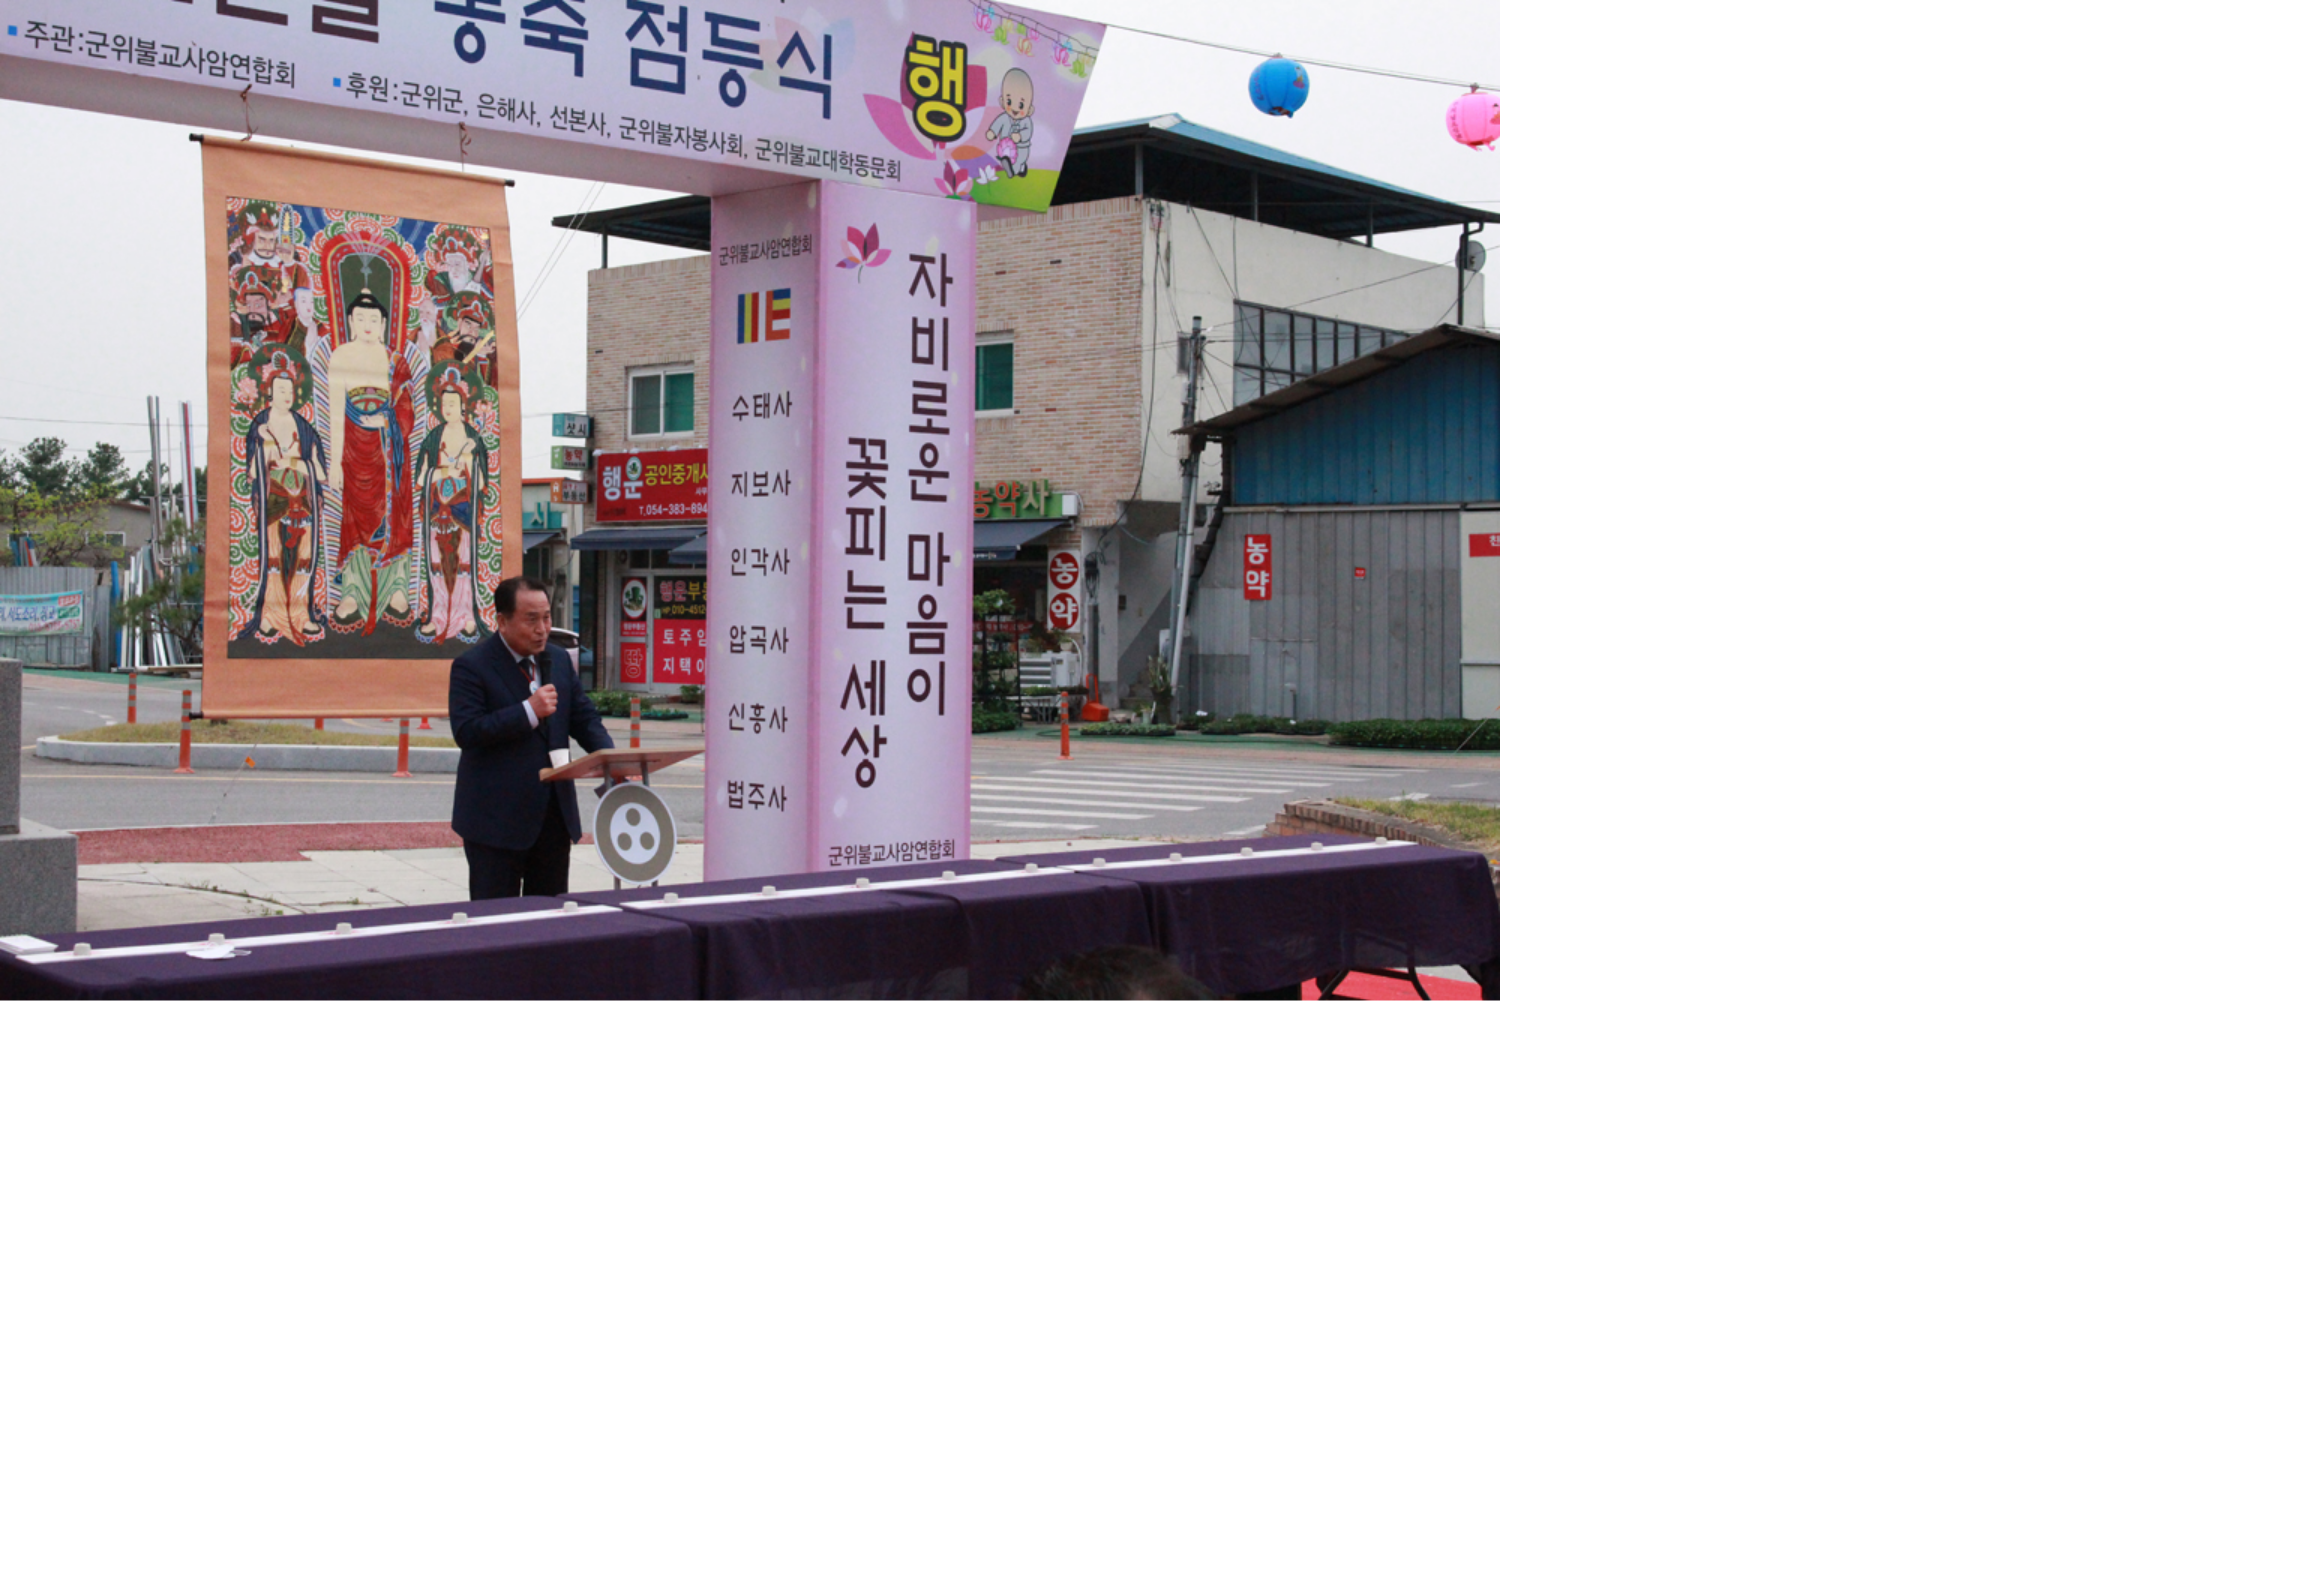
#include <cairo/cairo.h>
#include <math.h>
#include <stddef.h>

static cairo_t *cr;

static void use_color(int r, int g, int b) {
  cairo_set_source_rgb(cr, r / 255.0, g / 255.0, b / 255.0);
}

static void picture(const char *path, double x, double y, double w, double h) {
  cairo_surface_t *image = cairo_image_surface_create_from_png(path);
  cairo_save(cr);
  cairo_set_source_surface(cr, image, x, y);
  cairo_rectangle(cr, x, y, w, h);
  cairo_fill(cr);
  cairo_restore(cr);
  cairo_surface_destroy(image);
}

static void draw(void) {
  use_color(255, 255, 255);
  cairo_paint(cr);
  picture("img_01.png", 0, 0, 1500, 1001);
}

int main(void) {
  cairo_surface_t *surface = cairo_image_surface_create(CAIRO_FORMAT_RGB24, 2303, 1575);
  cr = cairo_create(surface);
  cairo_font_options_t *options = cairo_font_options_create();
  cairo_font_options_set_hint_metrics(options, CAIRO_HINT_METRICS_OFF);
  cairo_font_options_set_hint_style(options, CAIRO_HINT_STYLE_NONE);
  cairo_set_font_options(cr, options);
  cairo_set_miter_limit(cr, 4);
  draw();
  cairo_surface_write_to_png(surface, "out.png");
  cairo_font_options_destroy(options);
  cairo_destroy(cr);
  cairo_surface_destroy(surface);
  return 0;
}
